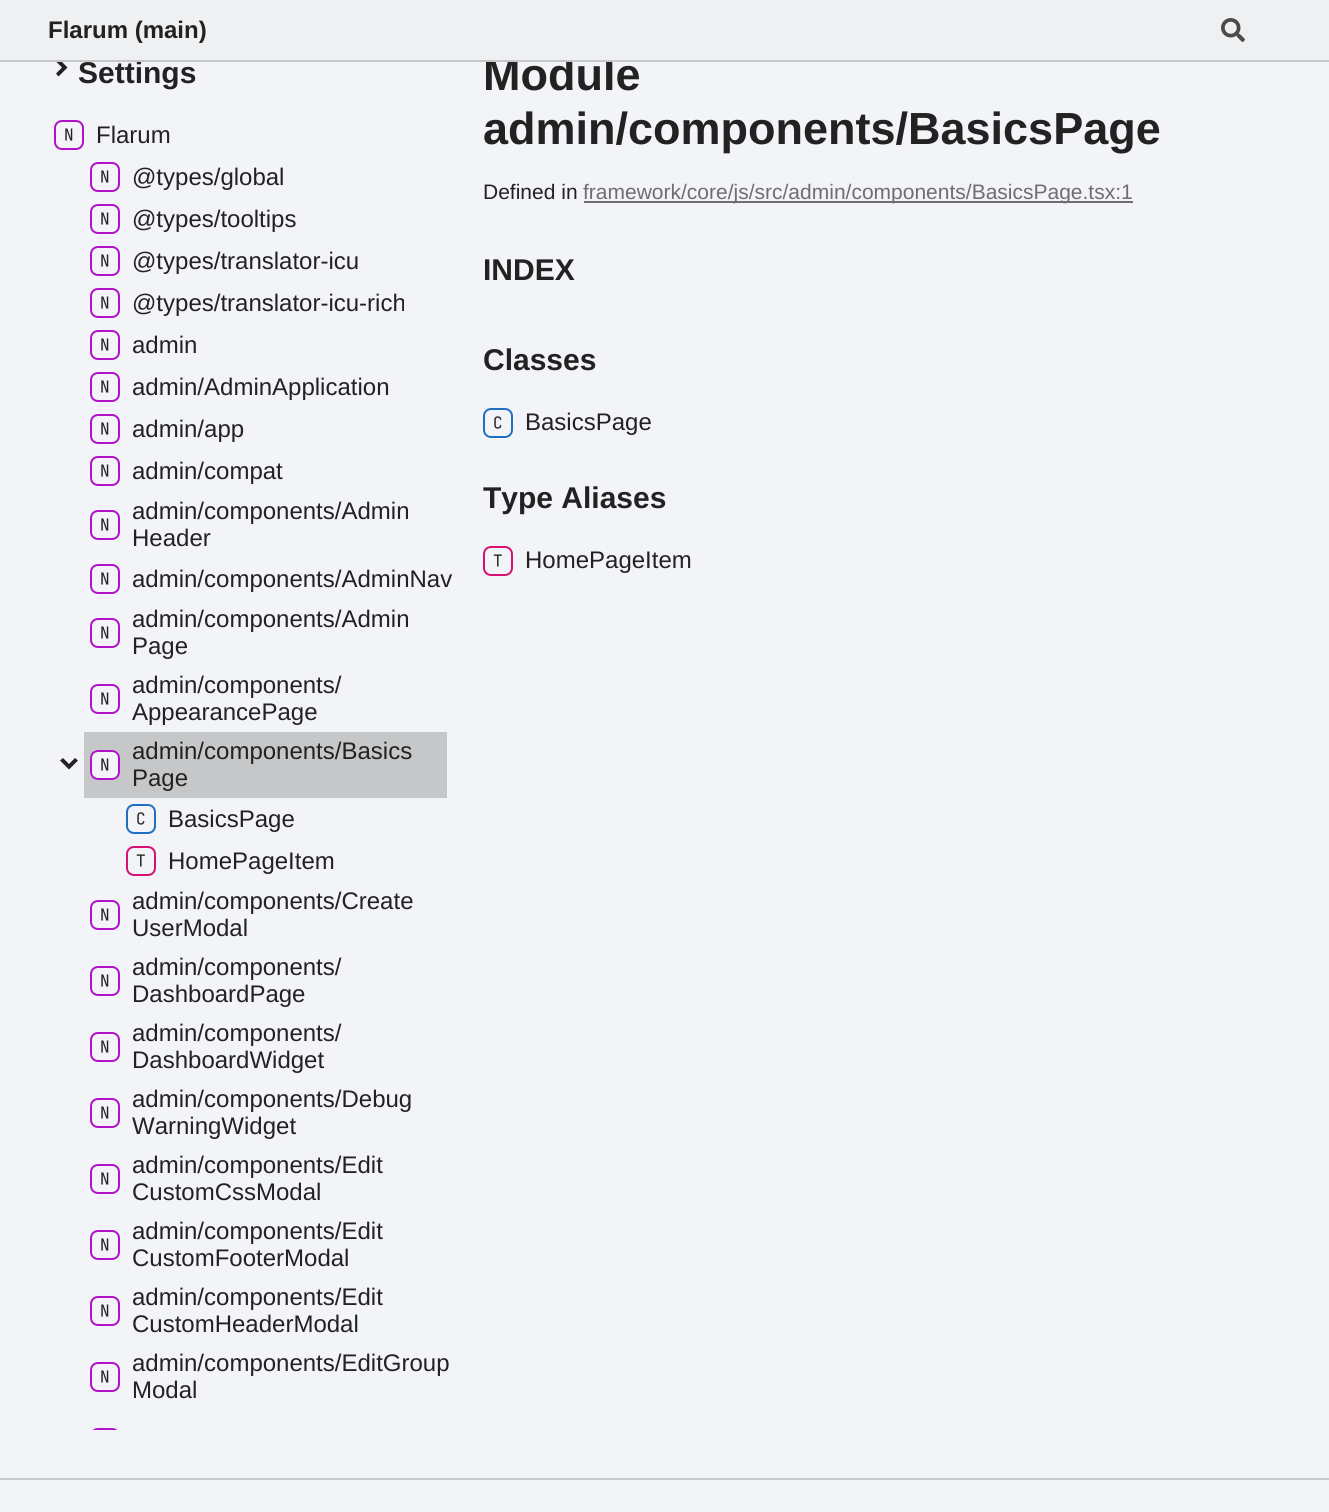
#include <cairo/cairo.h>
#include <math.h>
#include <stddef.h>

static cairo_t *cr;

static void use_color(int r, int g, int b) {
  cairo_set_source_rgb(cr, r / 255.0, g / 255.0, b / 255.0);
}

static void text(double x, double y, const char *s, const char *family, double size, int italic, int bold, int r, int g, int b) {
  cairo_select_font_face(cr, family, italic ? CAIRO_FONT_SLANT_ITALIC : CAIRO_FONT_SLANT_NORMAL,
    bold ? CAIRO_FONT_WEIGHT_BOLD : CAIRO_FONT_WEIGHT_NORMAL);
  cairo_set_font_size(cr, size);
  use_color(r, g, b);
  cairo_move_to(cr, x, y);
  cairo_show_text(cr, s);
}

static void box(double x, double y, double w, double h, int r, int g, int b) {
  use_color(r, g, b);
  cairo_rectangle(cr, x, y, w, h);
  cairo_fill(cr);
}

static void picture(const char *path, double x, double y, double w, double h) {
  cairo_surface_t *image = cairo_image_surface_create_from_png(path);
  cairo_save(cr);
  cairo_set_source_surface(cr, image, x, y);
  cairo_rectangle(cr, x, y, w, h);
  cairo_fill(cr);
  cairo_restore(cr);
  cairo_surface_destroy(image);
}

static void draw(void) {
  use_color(242, 244, 248);
  cairo_paint(cr);
  use_color(34, 34, 34);
  cairo_new_path(cr);
  cairo_move_to(cr, 58.5, 76.5);
  cairo_line_to(cr, 67.5, 67.5);
  cairo_line_to(cr, 58.5, 58.5);
  cairo_line_to(cr, 56, 61.5);
  cairo_line_to(cr, 62, 67.5);
  cairo_line_to(cr, 56, 73.5);
  cairo_close_path(cr);
  cairo_fill(cr);
  picture("img_02.png", 54, 120, 30, 30);
  picture("img_02.png", 90, 162, 30, 30);
  picture("img_02.png", 90, 204, 30, 30);
  picture("img_02.png", 90, 246, 30, 30);
  picture("img_02.png", 90, 288, 30, 30);
  picture("img_02.png", 90, 330, 30, 30);
  picture("img_02.png", 90, 372, 30, 30);
  picture("img_02.png", 90, 414, 30, 30);
  picture("img_02.png", 90, 456, 30, 30);
  picture("img_02.png", 90, 510, 30, 30);
  picture("img_02.png", 90, 564, 30, 30);
  picture("img_02.png", 90, 618, 30, 30);
  picture("img_02.png", 90, 684, 30, 30);
  cairo_new_path(cr);
  cairo_move_to(cr, 60, 760.5);
  cairo_line_to(cr, 69, 769.5);
  cairo_line_to(cr, 78, 760.5);
  cairo_line_to(cr, 75, 758);
  cairo_line_to(cr, 69, 764);
  cairo_line_to(cr, 63, 758);
  cairo_close_path(cr);
  cairo_fill(cr);
  box(84, 732, 363, 66, 197, 199, 201);
  picture("img_03.png", 90, 750, 30, 30);
  picture("img_04.png", 126, 804, 30, 30);
  picture("img_05.png", 126, 846, 30, 30);
  picture("img_02.png", 90, 900, 30, 30);
  picture("img_02.png", 90, 966, 30, 30);
  picture("img_02.png", 90, 1032, 30, 30);
  picture("img_02.png", 90, 1098, 30, 30);
  picture("img_02.png", 90, 1164, 30, 30);
  picture("img_02.png", 90, 1230, 30, 30);
  picture("img_02.png", 90, 1296, 30, 30);
  picture("img_02.png", 90, 1362, 30, 30);
  picture("img_06.png", 92, 1428, 26, 2);
  box(584, 201, 549, 2, 110, 110, 110);
  picture("img_04.png", 483, 408, 30, 30);
  picture("img_05.png", 483, 546, 30, 30);
  box(0, 1478, 1329, 2, 197, 199, 201);
  text(78, 83, "Settings", "Liberation Sans", 30, 0, 1, 34, 34, 34);
  text(96, 143, "Flarum", "Liberation Sans", 24, 0, 0, 34, 34, 34);
  text(132, 185, "@types/global", "Liberation Sans", 24, 0, 0, 34, 34, 34);
  text(132, 227, "@types/tooltips", "Liberation Sans", 24, 0, 0, 34, 34, 34);
  text(132, 269, "@types/translator-icu", "Liberation Sans", 24, 0, 0, 34, 34, 34);
  text(132, 311, "@types/translator-icu-rich", "Liberation Sans", 24, 0, 0, 34, 34, 34);
  text(132, 353, "admin", "Liberation Sans", 24, 0, 0, 34, 34, 34);
  text(132, 395, "admin/AdminApplication", "Liberation Sans", 24, 0, 0, 34, 34, 34);
  text(132, 437, "admin/app", "Liberation Sans", 24, 0, 0, 34, 34, 34);
  text(132, 479, "admin/compat", "Liberation Sans", 24, 0, 0, 34, 34, 34);
  text(132, 519, "admin/components/Admin", "Liberation Sans", 24, 0, 0, 34, 34, 34);
  text(132, 546, "Header", "Liberation Sans", 24, 0, 0, 34, 34, 34);
  text(132, 587, "admin/components/AdminNav", "Liberation Sans", 24, 0, 0, 34, 34, 34);
  text(132, 627, "admin/components/Admin", "Liberation Sans", 24, 0, 0, 34, 34, 34);
  text(132, 654, "Page", "Liberation Sans", 24, 0, 0, 34, 34, 34);
  text(132, 693, "admin/components/", "Liberation Sans", 24, 0, 0, 34, 34, 34);
  text(132, 720, "AppearancePage", "Liberation Sans", 24, 0, 0, 34, 34, 34);
  text(132, 759, "admin/components/Basics", "Liberation Sans", 24, 0, 0, 34, 34, 34);
  text(132, 786, "Page", "Liberation Sans", 24, 0, 0, 34, 34, 34);
  text(168, 827, "BasicsPage", "Liberation Sans", 24, 0, 0, 34, 34, 34);
  text(168, 869, "HomePageItem", "Liberation Sans", 24, 0, 0, 34, 34, 34);
  text(132, 909, "admin/components/Create", "Liberation Sans", 24, 0, 0, 34, 34, 34);
  text(132, 936, "UserModal", "Liberation Sans", 24, 0, 0, 34, 34, 34);
  text(132, 975, "admin/components/", "Liberation Sans", 24, 0, 0, 34, 34, 34);
  text(132, 1002, "DashboardPage", "Liberation Sans", 24, 0, 0, 34, 34, 34);
  text(132, 1041, "admin/components/", "Liberation Sans", 24, 0, 0, 34, 34, 34);
  text(132, 1068, "DashboardWidget", "Liberation Sans", 24, 0, 0, 34, 34, 34);
  text(132, 1107, "admin/components/Debug", "Liberation Sans", 24, 0, 0, 34, 34, 34);
  text(132, 1134, "WarningWidget", "Liberation Sans", 24, 0, 0, 34, 34, 34);
  text(132, 1173, "admin/components/Edit", "Liberation Sans", 24, 0, 0, 34, 34, 34);
  text(132, 1200, "CustomCssModal", "Liberation Sans", 24, 0, 0, 34, 34, 34);
  text(132, 1239, "admin/components/Edit", "Liberation Sans", 24, 0, 0, 34, 34, 34);
  text(132, 1266, "CustomFooterModal", "Liberation Sans", 24, 0, 0, 34, 34, 34);
  text(132, 1305, "admin/components/Edit", "Liberation Sans", 24, 0, 0, 34, 34, 34);
  text(132, 1332, "CustomHeaderModal", "Liberation Sans", 24, 0, 0, 34, 34, 34);
  text(132, 1371, "admin/components/EditGroup", "Liberation Sans", 24, 0, 0, 34, 34, 34);
  text(132, 1398, "Modal", "Liberation Sans", 24, 0, 0, 34, 34, 34);
  text(483, 90, "Module", "Liberation Sans", 45, 0, 1, 34, 34, 34);
  box(0, 0, 1329, 60, 239, 240, 241);
  text(48, 38, "Flarum (main)", "Liberation Sans", 24, 0, 1, 34, 34, 34);
  picture("img_01.png", 1221, 18, 24, 24);
  box(0, 60, 1329, 2, 197, 199, 201);
  text(483, 144, "admin/components/BasicsPage", "Liberation Sans", 45, 0, 1, 34, 34, 34);
  text(483, 199, "Defined in", "Liberation Sans", 21, 0, 0, 34, 34, 34);
  text(583, 199, "framework/core/js/src/admin/components/BasicsPage.tsx:1", "Liberation Sans", 21, 0, 0, 110, 110, 110);
  text(483, 280, "INDEX", "Liberation Sans", 30, 0, 1, 34, 34, 34);
  text(483, 370, "Classes", "Liberation Sans", 30, 0, 1, 34, 34, 34);
  text(525, 430, "BasicsPage", "Liberation Sans", 24, 0, 0, 34, 34, 34);
  text(483, 508, "Type Aliases", "Liberation Sans", 30, 0, 1, 34, 34, 34);
  text(525, 568, "HomePageItem", "Liberation Sans", 24, 0, 0, 34, 34, 34);
}

int main(void) {
  cairo_surface_t *surface = cairo_image_surface_create(CAIRO_FORMAT_RGB24, 1329, 1512);
  cr = cairo_create(surface);
  cairo_font_options_t *options = cairo_font_options_create();
  cairo_font_options_set_hint_metrics(options, CAIRO_HINT_METRICS_OFF);
  cairo_font_options_set_hint_style(options, CAIRO_HINT_STYLE_NONE);
  cairo_set_font_options(cr, options);
  cairo_set_miter_limit(cr, 4);
  draw();
  cairo_surface_write_to_png(surface, "out.png");
  cairo_font_options_destroy(options);
  cairo_destroy(cr);
  cairo_surface_destroy(surface);
  return 0;
}
